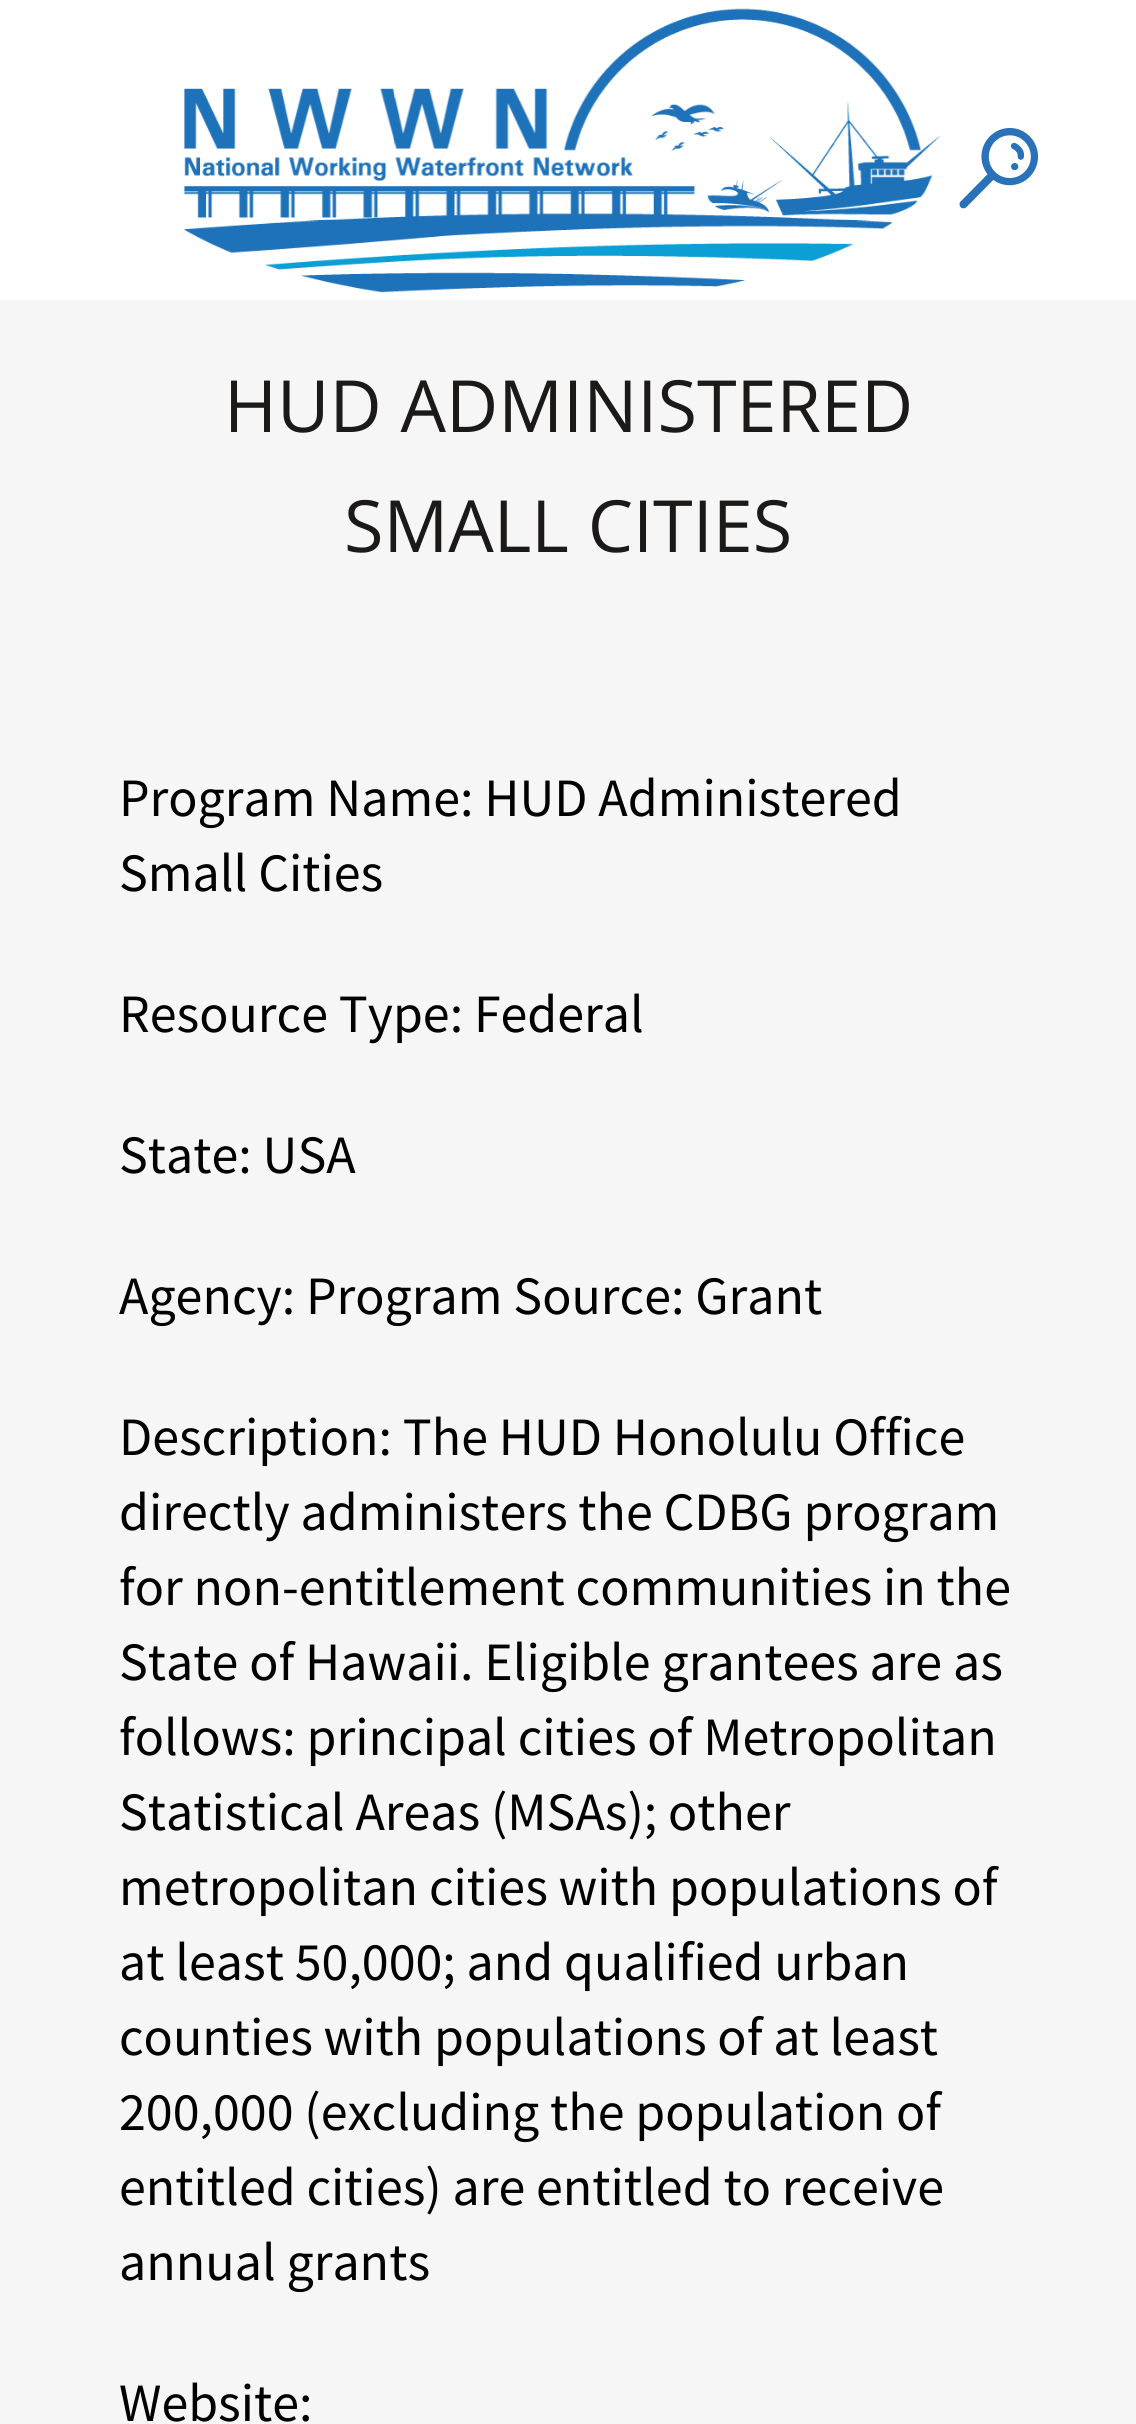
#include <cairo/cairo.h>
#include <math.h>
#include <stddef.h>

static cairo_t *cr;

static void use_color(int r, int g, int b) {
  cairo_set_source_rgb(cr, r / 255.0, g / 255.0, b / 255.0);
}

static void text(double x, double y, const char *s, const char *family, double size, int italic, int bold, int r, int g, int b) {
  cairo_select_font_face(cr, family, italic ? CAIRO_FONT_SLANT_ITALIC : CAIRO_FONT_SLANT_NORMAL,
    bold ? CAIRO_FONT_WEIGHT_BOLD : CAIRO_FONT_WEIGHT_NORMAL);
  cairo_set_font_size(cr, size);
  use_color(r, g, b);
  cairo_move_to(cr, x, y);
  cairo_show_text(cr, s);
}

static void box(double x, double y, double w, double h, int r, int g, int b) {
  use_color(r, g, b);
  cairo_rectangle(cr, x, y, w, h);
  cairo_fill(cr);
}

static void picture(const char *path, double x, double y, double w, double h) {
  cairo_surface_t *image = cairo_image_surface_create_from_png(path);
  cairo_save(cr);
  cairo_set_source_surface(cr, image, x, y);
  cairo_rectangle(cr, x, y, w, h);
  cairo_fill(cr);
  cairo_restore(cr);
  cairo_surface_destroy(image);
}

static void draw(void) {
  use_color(246, 246, 246);
  cairo_paint(cr);
  box(0, 0, 1136, 300, 255, 255, 255);
  picture("img_01.png", 183, 8, 758, 285);
  picture("img_02.png", 959, 128, 80, 81);
  text(224, 432, "HUD ADMINISTERED", "Open Sans", 72, 0, 0, 28, 25, 25);
  text(344, 552, "SMALL CITIES", "Open Sans", 72, 0, 0, 28, 25, 25);
  text(119, 816, "Program Name: HUD Administered", "Source Sans Pro", 54, 0, 0, 0, 0, 0);
  text(119, 891, "Small Cities", "Source Sans Pro", 54, 0, 0, 0, 0, 0);
  text(119, 1032, "Resource Type: Federal", "Source Sans Pro", 54, 0, 0, 0, 0, 0);
  text(119, 1173, "State: USA", "Source Sans Pro", 54, 0, 0, 0, 0, 0);
  text(119, 1314, "Agency: Program Source: Grant", "Source Sans Pro", 54, 0, 0, 0, 0, 0);
  text(119, 1455, "Description: The HUD Honolulu Office", "Source Sans Pro", 54, 0, 0, 0, 0, 0);
  text(119, 1530, "directly administers the CDBG program", "Source Sans Pro", 54, 0, 0, 0, 0, 0);
  text(119, 1605, "for non-entitlement communities in the", "Source Sans Pro", 54, 0, 0, 0, 0, 0);
  text(119, 1680, "State of Hawaii. Eligible grantees are as", "Source Sans Pro", 54, 0, 0, 0, 0, 0);
  text(119, 1755, "follows: principal cities of Metropolitan", "Source Sans Pro", 54, 0, 0, 0, 0, 0);
  text(119, 1830, "Statistical Areas (MSAs); other", "Source Sans Pro", 54, 0, 0, 0, 0, 0);
  text(119, 1905, "metropolitan cities with populations of", "Source Sans Pro", 54, 0, 0, 0, 0, 0);
  text(119, 1980, "at least 50,000; and qualified urban", "Source Sans Pro", 54, 0, 0, 0, 0, 0);
  text(119, 2055, "counties with populations of at least", "Source Sans Pro", 54, 0, 0, 0, 0, 0);
  text(119, 2130, "200,000 (excluding the population of", "Source Sans Pro", 54, 0, 0, 0, 0, 0);
  text(119, 2205, "entitled cities) are entitled to receive", "Source Sans Pro", 54, 0, 0, 0, 0, 0);
  text(119, 2280, "annual grants", "Source Sans Pro", 54, 0, 0, 0, 0, 0);
  text(119, 2421, "Website:", "Source Sans Pro", 54, 0, 0, 0, 0, 0);
}

int main(void) {
  cairo_surface_t *surface = cairo_image_surface_create(CAIRO_FORMAT_RGB24, 1136, 2424);
  cr = cairo_create(surface);
  cairo_font_options_t *options = cairo_font_options_create();
  cairo_font_options_set_hint_metrics(options, CAIRO_HINT_METRICS_OFF);
  cairo_font_options_set_hint_style(options, CAIRO_HINT_STYLE_NONE);
  cairo_set_font_options(cr, options);
  cairo_set_miter_limit(cr, 4);
  draw();
  cairo_surface_write_to_png(surface, "out.png");
  cairo_font_options_destroy(options);
  cairo_destroy(cr);
  cairo_surface_destroy(surface);
  return 0;
}
